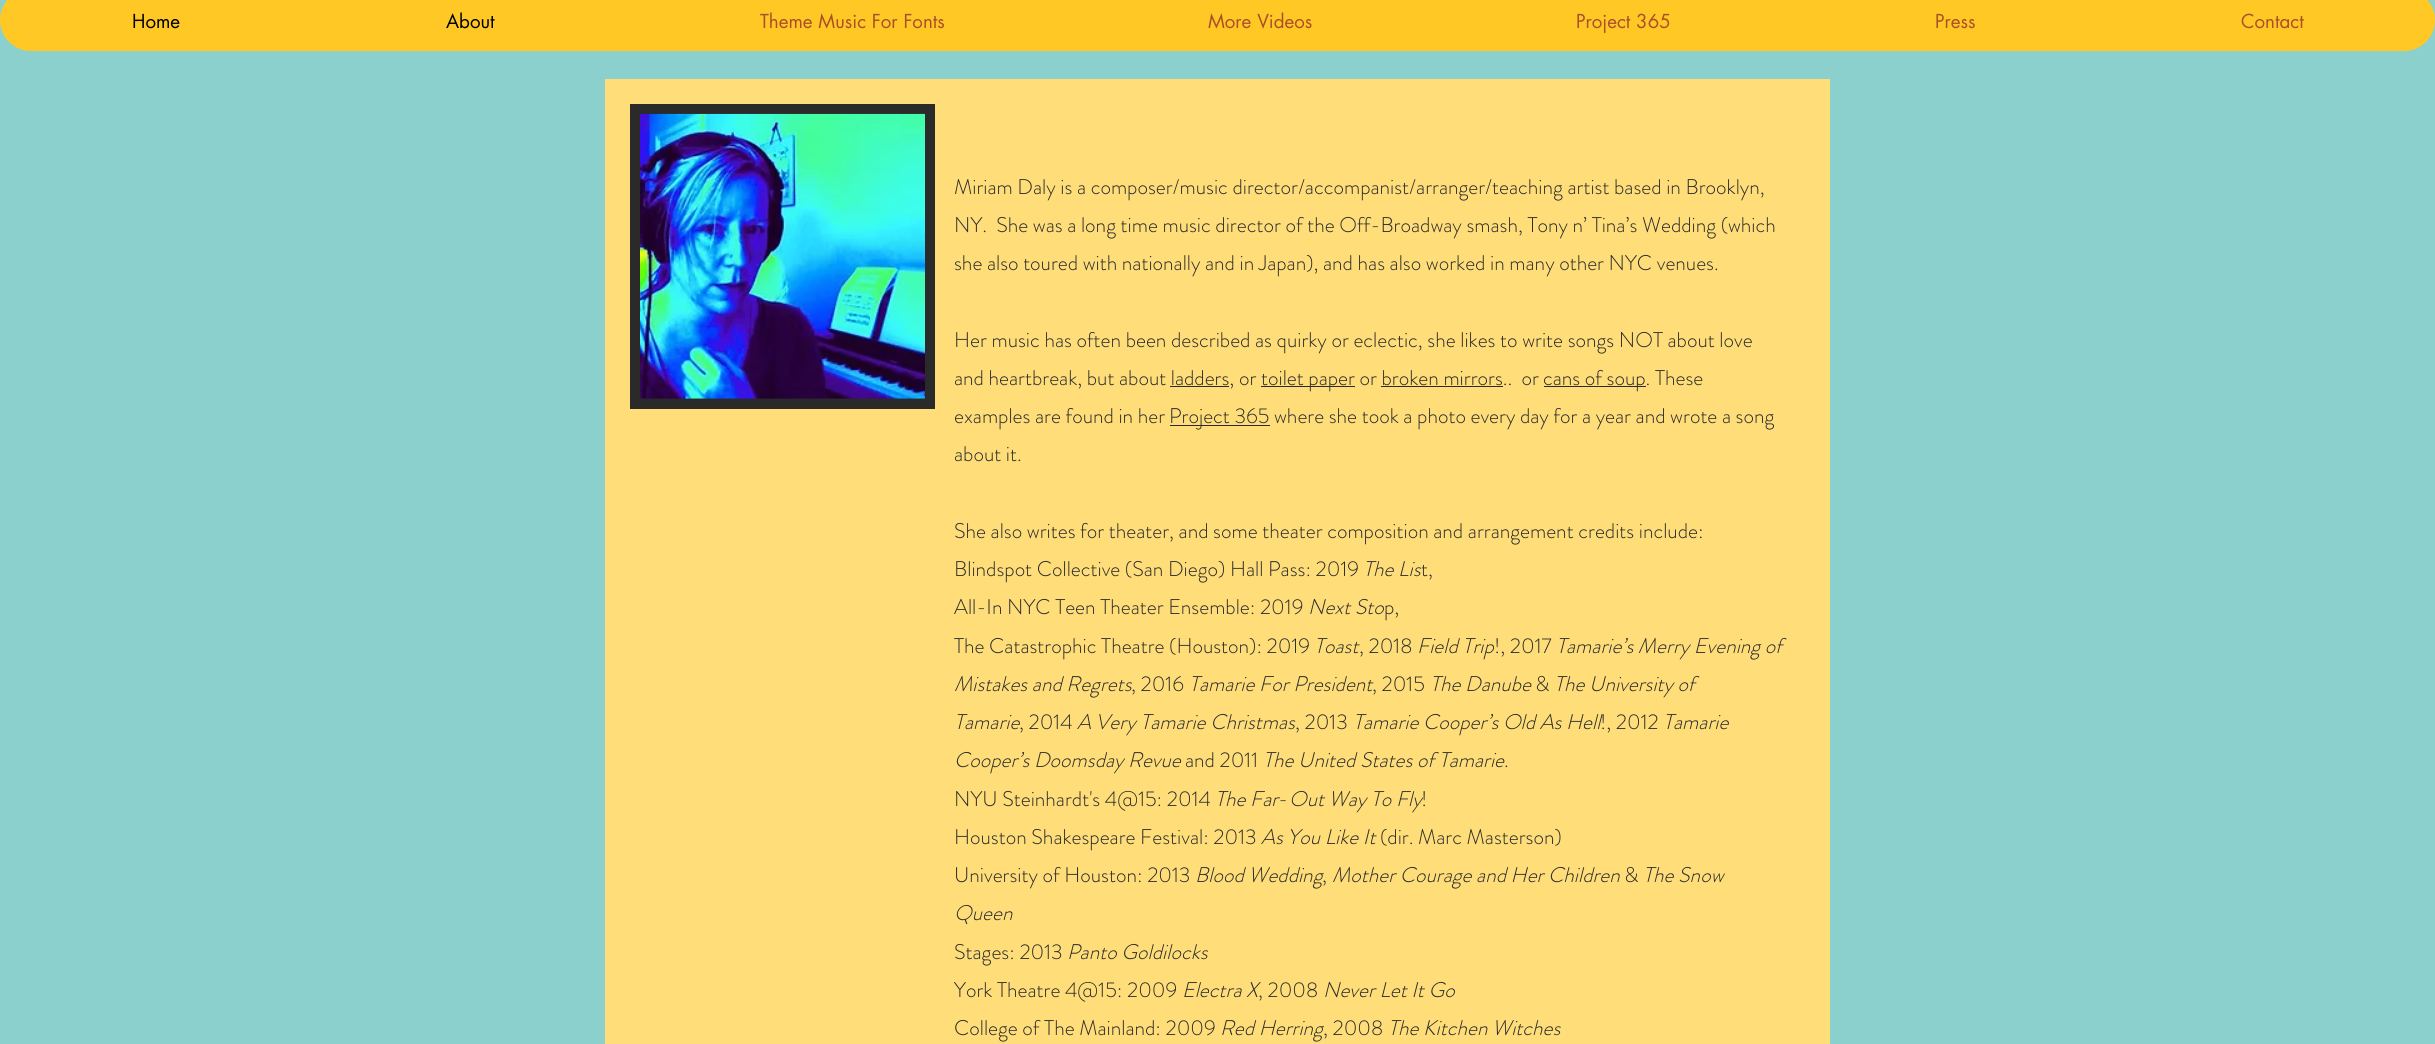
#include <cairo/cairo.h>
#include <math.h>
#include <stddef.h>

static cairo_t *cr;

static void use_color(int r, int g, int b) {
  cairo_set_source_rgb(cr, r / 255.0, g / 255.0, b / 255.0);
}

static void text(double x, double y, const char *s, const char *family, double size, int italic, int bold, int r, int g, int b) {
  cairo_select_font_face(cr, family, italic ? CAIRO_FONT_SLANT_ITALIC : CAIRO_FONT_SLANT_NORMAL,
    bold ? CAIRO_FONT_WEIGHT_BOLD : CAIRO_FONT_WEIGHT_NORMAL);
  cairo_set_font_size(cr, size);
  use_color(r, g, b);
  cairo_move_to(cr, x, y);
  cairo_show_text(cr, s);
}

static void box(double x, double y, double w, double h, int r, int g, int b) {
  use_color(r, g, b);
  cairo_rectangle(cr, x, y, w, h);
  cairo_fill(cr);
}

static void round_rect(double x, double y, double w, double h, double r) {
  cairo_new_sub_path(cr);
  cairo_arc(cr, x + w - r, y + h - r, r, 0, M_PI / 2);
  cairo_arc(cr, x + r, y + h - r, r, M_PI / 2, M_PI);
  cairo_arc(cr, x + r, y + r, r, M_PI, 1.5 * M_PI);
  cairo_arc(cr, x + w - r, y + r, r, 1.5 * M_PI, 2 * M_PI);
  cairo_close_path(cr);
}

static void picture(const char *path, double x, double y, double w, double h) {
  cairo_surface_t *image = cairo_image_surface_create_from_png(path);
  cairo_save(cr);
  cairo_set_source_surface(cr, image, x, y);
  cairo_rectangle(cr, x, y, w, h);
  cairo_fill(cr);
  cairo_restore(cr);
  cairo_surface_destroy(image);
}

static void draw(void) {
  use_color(139, 208, 205);
  cairo_paint(cr);
  use_color(255, 200, 36);
  round_rect(0, -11, 2435, 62, 31);
  cairo_fill(cr);
  box(605, 79, 1225, 965, 255, 222, 122);
  box(630, 104, 305, 305, 42, 42, 42);
  picture("img_01.png", 640, 113, 285, 286);
  box(1170, 386, 59, 1, 42, 42, 42);
  box(1261, 386, 94, 1, 42, 42, 42);
  box(1381, 386, 122, 1, 42, 42, 42);
  box(1544, 386, 102, 1, 42, 42, 42);
  box(1170, 425, 100, 1, 42, 42, 42);
  text(132, 28, "Home", "futura", 18.75, 0, 0, 0, 0, 0);
  text(446, 28, "About", "futura", 18.75, 0, 0, 0, 0, 0);
  text(760, 28, "Theme Music For Fonts", "futura", 18.75, 0, 0, 169, 79, 42);
  text(1208, 28, "More Videos", "futura", 18.75, 0, 0, 169, 79, 42);
  text(1576, 28, "Project 365", "futura", 18.75, 0, 0, 169, 79, 42);
  text(1935, 28, "Press", "futura", 18.75, 0, 0, 169, 79, 42);
  text(2241, 28, "Contact", "futura", 18.75, 0, 0, 169, 79, 42);
  text(954, 194, "Miriam Daly is a composer/music director/accompanist/arranger/teaching artist based in Brooklyn,", "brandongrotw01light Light", 21.25, 0, 0, 42, 42, 42);
  text(954, 232, "NY.  She was a long time music director of the Off-Broadway smash, Tony n’ Tina’s Wedding (which", "brandongrotw01light Light", 21.25, 0, 0, 42, 42, 42);
  text(954, 270, "she also toured with nationally and in Japan), and has also worked in many other NYC venues.", "brandongrotw01light Light", 21.25, 0, 0, 42, 42, 42);
  text(954, 347, "Her music has often been described as quirky or eclectic, she likes to write songs NOT about love", "brandongrotw01light Light", 21.25, 0, 0, 42, 42, 42);
  text(954, 385, "and heartbreak, but about ladders, or", "brandongrotw01light Light", 21.25, 0, 0, 42, 42, 42);
  text(1261, 385, "toilet paper or broken mirrors..  or", "brandongrotw01light Light", 21.25, 0, 0, 42, 42, 42);
  text(1543, 385, "cans of soup. These", "brandongrotw01light Light", 21.25, 0, 0, 42, 42, 42);
  text(954, 423, "examples are found in her", "brandongrotw01light Light", 21.25, 0, 0, 42, 42, 42);
  text(1169, 423, "Project 365 where she took a photo every day for a year and wrote a song", "brandongrotw01light Light", 21.25, 0, 0, 42, 42, 42);
  text(954, 461, "about it.", "brandongrotw01light Light", 21.25, 0, 0, 42, 42, 42);
  text(954, 538, "She also writes for theater, and some theater composition and arrangement credits include:", "brandongrotw01light Light", 21.25, 0, 0, 42, 42, 42);
  text(954, 576, "Blindspot Collective (San Diego) Hall Pass: 2019", "brandongrotw01light Light", 21.25, 0, 0, 42, 42, 42);
  text(1363, 576, "The Lis", "brandongrotw01light Light", 21.25, 1, 0, 42, 42, 42);
  text(1421, 576, "t,", "brandongrotw01light Light", 21.25, 0, 0, 42, 42, 42);
  text(954, 614, "All-In NYC Teen Theater Ensemble: 2019", "brandongrotw01light Light", 21.25, 0, 0, 42, 42, 42);
  text(1308, 614, "Next Sto", "brandongrotw01light Light", 21.25, 1, 0, 42, 42, 42);
  text(1384, 614, "p,", "brandongrotw01light Light", 21.25, 0, 0, 42, 42, 42);
  text(954, 653, "The Catastrophic Theatre (Houston): 2019", "brandongrotw01light Light", 21.25, 0, 0, 42, 42, 42);
  text(1314, 653, "Toast", "brandongrotw01light Light", 21.25, 1, 0, 42, 42, 42);
  text(1359, 653, ", 2018", "brandongrotw01light Light", 21.25, 0, 0, 42, 42, 42);
  text(1417, 653, "Field Trip", "brandongrotw01light Light", 21.25, 1, 0, 42, 42, 42);
  text(1494, 653, "!, 2017", "brandongrotw01light Light", 21.25, 0, 0, 42, 42, 42);
  text(1556, 653, "Tamarie’s Merry Evening of", "brandongrotw01light Light", 21.25, 1, 0, 42, 42, 42);
  text(954, 691, "Mistakes and Regrets", "brandongrotw01light Light", 21.25, 1, 0, 42, 42, 42);
  text(1131, 691, ", 2016", "brandongrotw01light Light", 21.25, 0, 0, 42, 42, 42);
  text(1189, 691, "Tamarie For President", "brandongrotw01light Light", 21.25, 1, 0, 42, 42, 42);
  text(1372, 691, ", 2015", "brandongrotw01light Light", 21.25, 0, 0, 42, 42, 42);
  text(1430, 691, "The Danube", "brandongrotw01light Light", 21.25, 1, 0, 42, 42, 42);
  text(1535, 691, "&", "brandongrotw01light Light", 21.25, 0, 0, 42, 42, 42);
  text(1554, 691, "The University of", "brandongrotw01light Light", 21.25, 1, 0, 42, 42, 42);
  text(954, 729, "Tamarie", "brandongrotw01light Light", 21.25, 1, 0, 42, 42, 42);
  text(1019, 729, ", 2014", "brandongrotw01light Light", 21.25, 0, 0, 42, 42, 42);
  text(1077, 729, "A Very Tamarie Christmas", "brandongrotw01light Light", 21.25, 1, 0, 42, 42, 42);
  text(1295, 729, ", 2013", "brandongrotw01light Light", 21.25, 0, 0, 42, 42, 42);
  text(1353, 729, "Tamarie Cooper’s Old As Hell", "brandongrotw01light Light", 21.25, 1, 0, 42, 42, 42);
  text(1600, 729, "!, 2012", "brandongrotw01light Light", 21.25, 0, 0, 42, 42, 42);
  text(1663, 729, "Tamarie", "brandongrotw01light Light", 21.25, 1, 0, 42, 42, 42);
  text(954, 767, "Cooper’s Doomsday Revue", "brandongrotw01light Light", 21.25, 1, 0, 42, 42, 42);
  text(1185, 767, "and 2011", "brandongrotw01light Light", 21.25, 0, 0, 42, 42, 42);
  text(1263, 767, "The United States of Tamarie", "brandongrotw01light Light", 21.25, 1, 0, 42, 42, 42);
  text(1504, 767, ".", "brandongrotw01light Light", 21.25, 0, 0, 42, 42, 42);
  text(954, 806, "NYU Steinhardt's 4@15: 2014", "brandongrotw01light Light", 21.25, 0, 0, 42, 42, 42);
  text(1215, 806, "The Far", "brandongrotw01light Light", 21.25, 1, 0, 42, 42, 42);
  text(1278, 806, "-", "brandongrotw01light Light", 21.25, 0, 0, 42, 42, 42);
  text(1289, 806, "Out Way To Fly", "brandongrotw01light Light", 21.25, 1, 0, 42, 42, 42);
  text(1421, 806, "!", "brandongrotw01light Light", 21.25, 0, 0, 42, 42, 42);
  text(954, 844, "Houston Shakespeare Festival: 2013", "brandongrotw01light Light", 21.25, 0, 0, 42, 42, 42);
  text(1261, 844, "As You Like It", "brandongrotw01light Light", 21.25, 1, 0, 42, 42, 42);
  text(1380, 844, "(dir. Marc Masterson)", "brandongrotw01light Light", 21.25, 0, 0, 42, 42, 42);
  text(954, 882, "University of Houston: 2013", "brandongrotw01light Light", 21.25, 0, 0, 42, 42, 42);
  text(1195, 882, "Blood Wedding", "brandongrotw01light Light", 21.25, 1, 0, 42, 42, 42);
  text(1322, 882, ",", "brandongrotw01light Light", 21.25, 0, 0, 42, 42, 42);
  text(1332, 882, "Mother Courage and Her Children", "brandongrotw01light Light", 21.25, 1, 0, 42, 42, 42);
  text(1624, 882, "&", "brandongrotw01light Light", 21.25, 0, 0, 42, 42, 42);
  text(1643, 882, "The Snow", "brandongrotw01light Light", 21.25, 1, 0, 42, 42, 42);
  text(954, 920, "Queen", "brandongrotw01light Light", 21.25, 1, 0, 42, 42, 42);
  text(954, 959, "Stages: 2013", "brandongrotw01light Light", 21.25, 0, 0, 42, 42, 42);
  text(1067, 959, "Panto Goldilocks", "brandongrotw01light Light", 21.25, 1, 0, 42, 42, 42);
  text(954, 997, "York Theatre 4@15: 2009", "brandongrotw01light Light", 21.25, 0, 0, 42, 42, 42);
  text(1182, 997, "Electra X", "brandongrotw01light Light", 21.25, 1, 0, 42, 42, 42);
  text(1258, 997, ", 2008", "brandongrotw01light Light", 21.25, 0, 0, 42, 42, 42);
  text(1323, 997, "Never Let It Go", "brandongrotw01light Light", 21.25, 1, 0, 42, 42, 42);
  text(954, 1035, "College of The Mainland: 2009", "brandongrotw01light Light", 21.25, 0, 0, 42, 42, 42);
  text(1220, 1035, "Red Herring", "brandongrotw01light Light", 21.25, 1, 0, 42, 42, 42);
  text(1323, 1035, ", 2008", "brandongrotw01light Light", 21.25, 0, 0, 42, 42, 42);
  text(1388, 1035, "The Kitchen Witches", "brandongrotw01light Light", 21.25, 1, 0, 42, 42, 42);
}

int main(void) {
  cairo_surface_t *surface = cairo_image_surface_create(CAIRO_FORMAT_RGB24, 2435, 1044);
  cr = cairo_create(surface);
  cairo_font_options_t *options = cairo_font_options_create();
  cairo_font_options_set_hint_metrics(options, CAIRO_HINT_METRICS_OFF);
  cairo_font_options_set_hint_style(options, CAIRO_HINT_STYLE_NONE);
  cairo_set_font_options(cr, options);
  cairo_set_miter_limit(cr, 4);
  draw();
  cairo_surface_write_to_png(surface, "out.png");
  cairo_font_options_destroy(options);
  cairo_destroy(cr);
  cairo_surface_destroy(surface);
  return 0;
}
